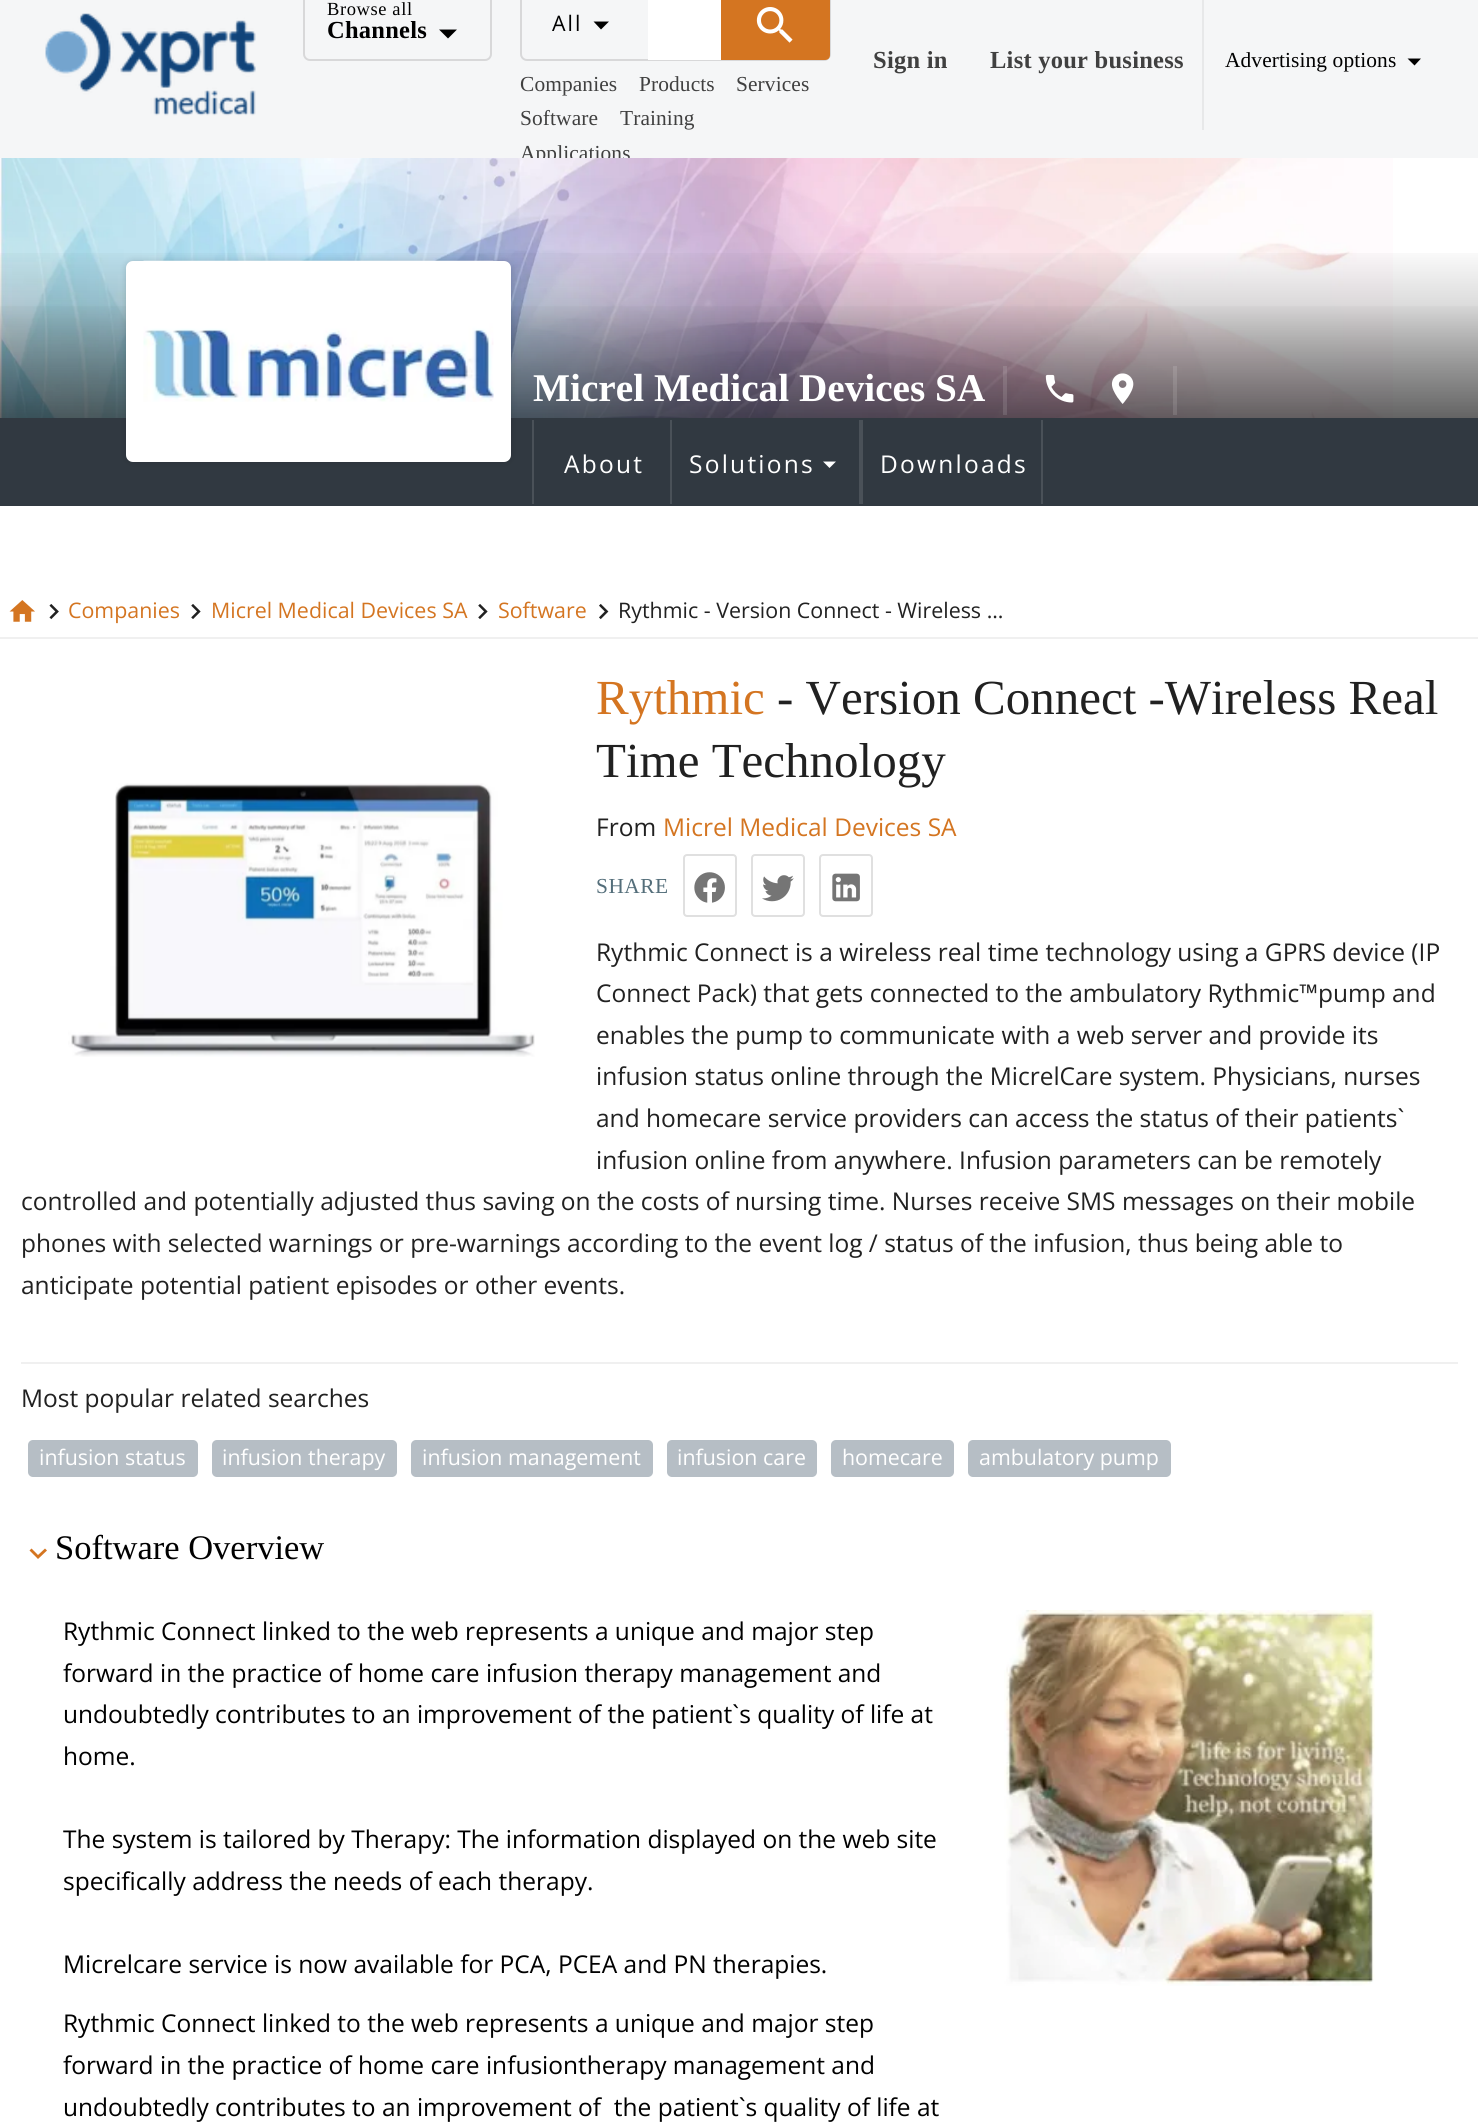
#include <cairo/cairo.h>
#include <math.h>
#include <stddef.h>

static cairo_t *cr;

static void use_color(int r, int g, int b) {
  cairo_set_source_rgb(cr, r / 255.0, g / 255.0, b / 255.0);
}

static void text(double x, double y, const char *s, const char *family, double size, int italic, int bold, int r, int g, int b) {
  cairo_select_font_face(cr, family, italic ? CAIRO_FONT_SLANT_ITALIC : CAIRO_FONT_SLANT_NORMAL,
    bold ? CAIRO_FONT_WEIGHT_BOLD : CAIRO_FONT_WEIGHT_NORMAL);
  cairo_set_font_size(cr, size);
  use_color(r, g, b);
  cairo_move_to(cr, x, y);
  cairo_show_text(cr, s);
}

static void spaced_text(double x, double y, const char *s, double letter, double word) {
  cairo_move_to(cr, x, y);
  while (*s) {
    char ch[5] = {0};
    int n = 0;
    do ch[n++] = *s++; while ((*s & 0xC0) == 0x80);
    cairo_show_text(cr, ch);
    cairo_rel_move_to(cr, letter + word * (*ch == ' '), 0);
  }
}

static void box(double x, double y, double w, double h, int r, int g, int b) {
  use_color(r, g, b);
  cairo_rectangle(cr, x, y, w, h);
  cairo_fill(cr);
}

static void round_rect(double x, double y, double w, double h, double r) {
  cairo_new_sub_path(cr);
  cairo_arc(cr, x + w - r, y + h - r, r, 0, M_PI / 2);
  cairo_arc(cr, x + r, y + h - r, r, M_PI / 2, M_PI);
  cairo_arc(cr, x + r, y + r, r, M_PI, 1.5 * M_PI);
  cairo_arc(cr, x + w - r, y + r, r, 1.5 * M_PI, 2 * M_PI);
  cairo_close_path(cr);
}

static void shadow(double x, double y, double w, double h, double r, double blur, double alpha) {
  cairo_push_group_with_content(cr, CAIRO_CONTENT_ALPHA);
  cairo_set_operator(cr, CAIRO_OPERATOR_SOURCE);
  for (int i = 15; i >= -15 && fmin(w, h) + blur * i / 3 > 0; i -= 2) {
    double e = blur * i / 6;
    cairo_set_source_rgba(cr, 0, 0, 0, alpha * erfc((i - 1) / 8.5) / 2);
    round_rect(x - e, y - e, w + 2 * e, h + 2 * e, fmax(0, fmin(r + e + blur * .6, fmin(w, h) / 2 + e)));
    cairo_fill(cr);
  }
  cairo_pattern_t *soft = cairo_pop_group(cr);
  cairo_mask(cr, soft);
  cairo_pattern_destroy(soft);
}

static void picture(const char *path, double x, double y, double w, double h) {
  cairo_surface_t *image = cairo_image_surface_create_from_png(path);
  cairo_save(cr);
  cairo_set_source_surface(cr, image, x, y);
  cairo_rectangle(cr, x, y, w, h);
  cairo_fill(cr);
  cairo_restore(cr);
  cairo_surface_destroy(image);
}

static void draw(void) {
  cairo_pattern_t *gradient;
  use_color(255, 255, 255);
  cairo_paint(cr);
  box(0, 0, 1478, 158, 245, 246, 247);
  picture("img_01.png", 45, 13, 211, 103);
  round_rect(304, -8, 187, 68, 6);
  use_color(216, 216, 217);
  cairo_stroke(cr);
  use_color(0, 0, 0);
  cairo_new_path(cr);
  cairo_move_to(cr, 439, 29.5);
  cairo_line_to(cr, 448, 38.5);
  cairo_line_to(cr, 457, 29.5);
  cairo_close_path(cr);
  cairo_fill(cr);
  round_rect(521, -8, 309, 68, 6);
  use_color(216, 216, 217);
  cairo_stroke(cr);
  use_color(0, 0, 0);
  cairo_new_path(cr);
  cairo_move_to(cr, 593.5, 21.5);
  cairo_line_to(cr, 601, 29.5);
  cairo_line_to(cr, 609, 21.5);
  cairo_close_path(cr);
  cairo_fill(cr);
  box(648, 0, 73, 60, 255, 255, 255);
  use_color(212, 117, 33);
  cairo_new_path(cr);
  cairo_move_to(cr, 721, 0);
  cairo_line_to(cr, 830, 0);
  cairo_line_to(cr, 830, 55);
  cairo_curve_to(cr, 830, 58, 828, 60, 825, 60);
  cairo_line_to(cr, 721, 60);
  cairo_close_path(cr);
  cairo_fill(cr);
  picture("img_02.png", 756, 7, 37, 36);
  box(1202, 0, 2, 130, 231, 232, 233);
  use_color(0, 0, 0);
  cairo_new_path(cr);
  cairo_move_to(cr, 1407.5, 58.5);
  cairo_line_to(cr, 1414.5, 65.5);
  cairo_line_to(cr, 1421, 58.5);
  cairo_close_path(cr);
  cairo_fill(cr);
  picture("img_03.png", 0, 158, 1393, 260);
  gradient = cairo_pattern_create_linear(739, 241, 739, 504);
  cairo_pattern_add_color_stop_rgba(gradient, 0.01, 0, 0, 0, 0);
  cairo_pattern_add_color_stop_rgba(gradient, 0.6, 0, 0, 0, 0.35);
  cairo_pattern_add_color_stop_rgba(gradient, 1, 0, 0, 0, 0.65);
  cairo_set_source(cr, gradient);
  cairo_pattern_destroy(gradient);
  cairo_rectangle(cr, 0, 253, 1478, 165);
  cairo_fill(cr);
  gradient = cairo_pattern_create_linear(739, 296, 739, 504);
  cairo_pattern_add_color_stop_rgba(gradient, 0.01, 0, 0, 0, 0);
  cairo_pattern_add_color_stop_rgba(gradient, 0.6, 0, 0, 0, 0.35);
  cairo_pattern_add_color_stop_rgba(gradient, 1, 0, 0, 0, 0.65);
  cairo_set_source(cr, gradient);
  cairo_pattern_destroy(gradient);
  cairo_rectangle(cr, 0, 306, 1478, 112);
  cairo_fill(cr);
  box(0, 418, 1478, 88, 49, 57, 65);
  use_color(0, 0, 0);
  shadow(126, 261, 385, 201, 7, 3.5, 0.15);
  use_color(255, 255, 255);
  round_rect(126, 261, 385, 201, 7);
  cairo_fill(cr);
  picture("img_04.png", 143, 260, 351, 142);
  cairo_set_source_rgba(cr, 1, 1, 1, 0.12);
  cairo_rectangle(cr, 1003, 366, 4, 49);
  cairo_fill(cr);
  picture("img_05.png", 1045, 374, 29, 29);
  picture("img_06.png", 1111, 373, 23, 31);
  cairo_rectangle(cr, 1173, 366, 4, 49);
  cairo_fill(cr);
  box(532, 420, 2, 84, 74, 81, 88);
  box(670, 420, 2, 84, 74, 81, 88);
  use_color(255, 255, 255);
  cairo_new_path(cr);
  cairo_move_to(cr, 823, 461.5);
  cairo_line_to(cr, 829.5, 468);
  cairo_line_to(cr, 836, 461.5);
  cairo_close_path(cr);
  cairo_fill(cr);
  box(859, 420, 4, 84, 74, 81, 88);
  box(1041, 420, 2, 84, 74, 81, 88);
  picture("img_07.png", 9, 600, 26, 22);
  picture("img_08.png", 49, 604, 10, 16);
  picture("img_09.png", 191, 604, 10, 15);
  picture("img_09.png", 478, 604, 10, 15);
  picture("img_10.png", 599, 604, 10, 16);
  box(0, 637, 1478, 2, 240, 240, 240);
  round_rect(684, 855, 52, 61, 3);
  use_color(224, 224, 224);
  cairo_stroke(cr);
  picture("img_11.png", 694, 872, 31, 31);
  round_rect(752, 855, 52, 61, 3);
  cairo_stroke(cr);
  picture("img_12.png", 762, 875, 32, 27);
  round_rect(820, 855, 52, 61, 3);
  cairo_stroke(cr);
  picture("img_13.png", 832, 873, 28, 29);
  picture("img_14.png", 68, 783, 467, 274);
  box(21, 1362, 1437, 2, 240, 240, 240);
  use_color(182, 190, 197);
  round_rect(28, 1440, 170, 37, 5);
  cairo_fill(cr);
  round_rect(212, 1440, 185, 37, 5);
  cairo_fill(cr);
  round_rect(411, 1440, 242, 37, 5);
  cairo_fill(cr);
  round_rect(667, 1440, 150, 37, 5);
  cairo_fill(cr);
  round_rect(831, 1440, 123, 37, 5);
  cairo_fill(cr);
  round_rect(968, 1440, 203, 37, 5);
  cairo_fill(cr);
  use_color(212, 117, 33);
  cairo_new_path(cr);
  cairo_move_to(cr, 31.5, 1548.5);
  cairo_line_to(cr, 38, 1555);
  cairo_line_to(cr, 45, 1548.5);
  cairo_line_to(cr, 47, 1550.5);
  cairo_line_to(cr, 38, 1559);
  cairo_line_to(cr, 29.5, 1550.5);
  cairo_close_path(cr);
  cairo_fill(cr);
  picture("img_15.png", 1004, 1610, 371, 376);
  cairo_select_font_face(cr, "Liberation Serif", CAIRO_FONT_SLANT_NORMAL, CAIRO_FONT_WEIGHT_NORMAL);
  cairo_set_font_size(cr, 18.5);
  use_color(0, 0, 0);
  spaced_text(327, 15, "Browse all", 0.6, 0);
  cairo_select_font_face(cr, "Liberation Serif", CAIRO_FONT_SLANT_NORMAL, CAIRO_FONT_WEIGHT_BOLD);
  cairo_set_font_size(cr, 24.5);
  spaced_text(327, 38, "Channels", 0.25, 0);
  cairo_select_font_face(cr, "Open Sans", CAIRO_FONT_SLANT_NORMAL, CAIRO_FONT_WEIGHT_NORMAL);
  cairo_set_font_size(cr, 21.4);
  spaced_text(552, 31, "All", 2, 0);
  cairo_select_font_face(cr, "Liberation Serif", CAIRO_FONT_SLANT_NORMAL, CAIRO_FONT_WEIGHT_NORMAL);
  use_color(64, 64, 64);
  spaced_text(520, 91, "Companies", 0.1, 0);
  spaced_text(639, 91, "Products", 0.1, 0);
  spaced_text(736, 91, "Services", 0.1, 0);
  spaced_text(520, 125, "Software", 0.1, 0);
  spaced_text(620, 125, "Training", 0.1, 0);
  cairo_save(cr);
  cairo_rectangle(cr, 0, 0, 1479, 158);
  cairo_clip(cr);
  spaced_text(520, 160, "Applications", 0.1, 0);
  cairo_restore(cr);
  cairo_select_font_face(cr, "Liberation Serif", CAIRO_FONT_SLANT_NORMAL, CAIRO_FONT_WEIGHT_BOLD);
  cairo_set_font_size(cr, 24.5);
  spaced_text(873, 68, "Sign in", 0.25, 0);
  spaced_text(990, 68, "List your business", 0.25, 0);
  cairo_select_font_face(cr, "Liberation Serif", CAIRO_FONT_SLANT_NORMAL, CAIRO_FONT_WEIGHT_NORMAL);
  cairo_set_font_size(cr, 21.4);
  use_color(0, 0, 0);
  spaced_text(1225, 67, "Advertising options", 0.1, 0);
  text(533, 401, "Micrel Medical Devices SA", "Liberation Serif", 39.25, 0, 1, 255, 255, 255);
  cairo_select_font_face(cr, "Open Sans", CAIRO_FONT_SLANT_NORMAL, CAIRO_FONT_WEIGHT_NORMAL);
  cairo_set_font_size(cr, 24.5);
  spaced_text(564, 473, "About", 2.25, 0);
  spaced_text(689, 473, "Solutions", 2.25, 0);
  spaced_text(880, 473, "Downloads", 2.25, 0);
  text(68, 618, "Companies", "Open Sans", 21.4, 0, 0, 212, 117, 33);
  text(211, 618, "Micrel Medical Devices SA", "Open Sans", 21.4, 0, 0, 212, 117, 33);
  text(498, 618, "Software", "Open Sans", 21.4, 0, 0, 212, 117, 33);
  text(618, 618, "Rythmic - Version Connect - Wireless ...", "Open Sans", 21.4, 0, 0, 33, 33, 33);
  text(596, 714, "Rythmic", "Liberation Serif", 49, 0, 0, 212, 117, 33);
  text(777, 714, "- Version Connect -Wireless Real", "Liberation Serif", 49, 0, 0, 33, 33, 33);
  text(596, 777, "Time Technology", "Liberation Serif", 49, 0, 0, 33, 33, 33);
  text(596, 836, "From", "Open Sans", 24.5, 0, 0, 33, 33, 33);
  text(663, 836, "Micrel Medical Devices SA", "Open Sans", 24.5, 0, 0, 212, 117, 33);
  cairo_select_font_face(cr, "Liberation Serif", CAIRO_FONT_SLANT_NORMAL, CAIRO_FONT_WEIGHT_NORMAL);
  cairo_set_font_size(cr, 21.4);
  use_color(84, 110, 122);
  spaced_text(596, 893, "SHARE", 0.5, 0);
  text(596, 961, "Rythmic Connect is a wireless real time technology using a GPRS device (IP", "Open Sans", 24.5, 0, 0, 33, 33, 33);
  text(596, 1002, "Connect Pack) that gets connected to the ambulatory Rythmic™pump and", "Open Sans", 24.5, 0, 0, 33, 33, 33);
  text(596, 1044, "enables the pump to communicate with a web server and provide its", "Open Sans", 24.5, 0, 0, 33, 33, 33);
  text(596, 1085, "infusion status online through the MicrelCare system. Physicians, nurses", "Open Sans", 24.5, 0, 0, 33, 33, 33);
  text(596, 1127, "and homecare service providers can access the status of their patients`", "Open Sans", 24.5, 0, 0, 33, 33, 33);
  text(596, 1169, "infusion online from anywhere. Infusion parameters can be remotely", "Open Sans", 24.5, 0, 0, 33, 33, 33);
  text(21, 1210, "controlled and potentially adjusted thus saving on the costs of nursing time. Nurses receive SMS messages on their mobile", "Open Sans", 24.5, 0, 0, 33, 33, 33);
  text(21, 1252, "phones with selected warnings or pre-warnings according to the event log / status of the infusion, thus being able to", "Open Sans", 24.5, 0, 0, 33, 33, 33);
  text(21, 1294, "anticipate potential patient episodes or other events.", "Open Sans", 24.5, 0, 0, 33, 33, 33);
  text(21, 1407, "Most popular related searches", "Open Sans", 24.5, 0, 0, 33, 33, 33);
  text(39, 1465, "infusion status", "Open Sans", 21.4, 0, 0, 255, 255, 255);
  text(222, 1465, "infusion therapy", "Open Sans", 21.4, 0, 0, 255, 255, 255);
  text(422, 1465, "infusion management", "Open Sans", 21.4, 0, 0, 255, 255, 255);
  text(677, 1465, "infusion care", "Open Sans", 21.4, 0, 0, 255, 255, 255);
  text(842, 1465, "homecare", "Open Sans", 21.4, 0, 0, 255, 255, 255);
  text(979, 1465, "ambulatory pump", "Open Sans", 21.4, 0, 0, 255, 255, 255);
  text(55, 1559, "Software Overview", "Liberation Serif", 34.5, 0, 0, 0, 0, 0);
  text(63, 1640, "Rythmic Connect linked to the web represents a unique and major step", "Open Sans", 24.5, 0, 0, 0, 0, 0);
  text(63, 1682, "forward in the practice of home care infusion therapy management and", "Open Sans", 24.5, 0, 0, 0, 0, 0);
  text(63, 1723, "undoubtedly contributes to an improvement of the patient`s quality of life at", "Open Sans", 24.5, 0, 0, 0, 0, 0);
  text(63, 1765, "home.", "Open Sans", 24.5, 0, 0, 0, 0, 0);
  text(63, 1848, "The system is tailored by Therapy: The information displayed on the web site", "Open Sans", 24.5, 0, 0, 0, 0, 0);
  text(63, 1890, "specifically address the needs of each therapy.", "Open Sans", 24.5, 0, 0, 0, 0, 0);
  text(63, 1973, "Micrelcare service is now available for PCA, PCEA and PN therapies.", "Open Sans", 24.5, 0, 0, 0, 0, 0);
  text(63, 2032, "Rythmic Connect linked to the web represents a unique and major step", "Open Sans", 24.5, 0, 0, 0, 0, 0);
  text(63, 2074, "forward in the practice of home care infusiontherapy management and", "Open Sans", 24.5, 0, 0, 0, 0, 0);
  text(63, 2116, "undoubtedly contributes to an improvement of  the patient`s quality of life at", "Open Sans", 24.5, 0, 0, 0, 0, 0);
}

int main(void) {
  cairo_surface_t *surface = cairo_image_surface_create(CAIRO_FORMAT_RGB24, 1478, 2128);
  cr = cairo_create(surface);
  cairo_font_options_t *options = cairo_font_options_create();
  cairo_font_options_set_hint_metrics(options, CAIRO_HINT_METRICS_OFF);
  cairo_font_options_set_hint_style(options, CAIRO_HINT_STYLE_NONE);
  cairo_set_font_options(cr, options);
  cairo_set_miter_limit(cr, 4);
  draw();
  cairo_surface_write_to_png(surface, "out.png");
  cairo_font_options_destroy(options);
  cairo_destroy(cr);
  cairo_surface_destroy(surface);
  return 0;
}
